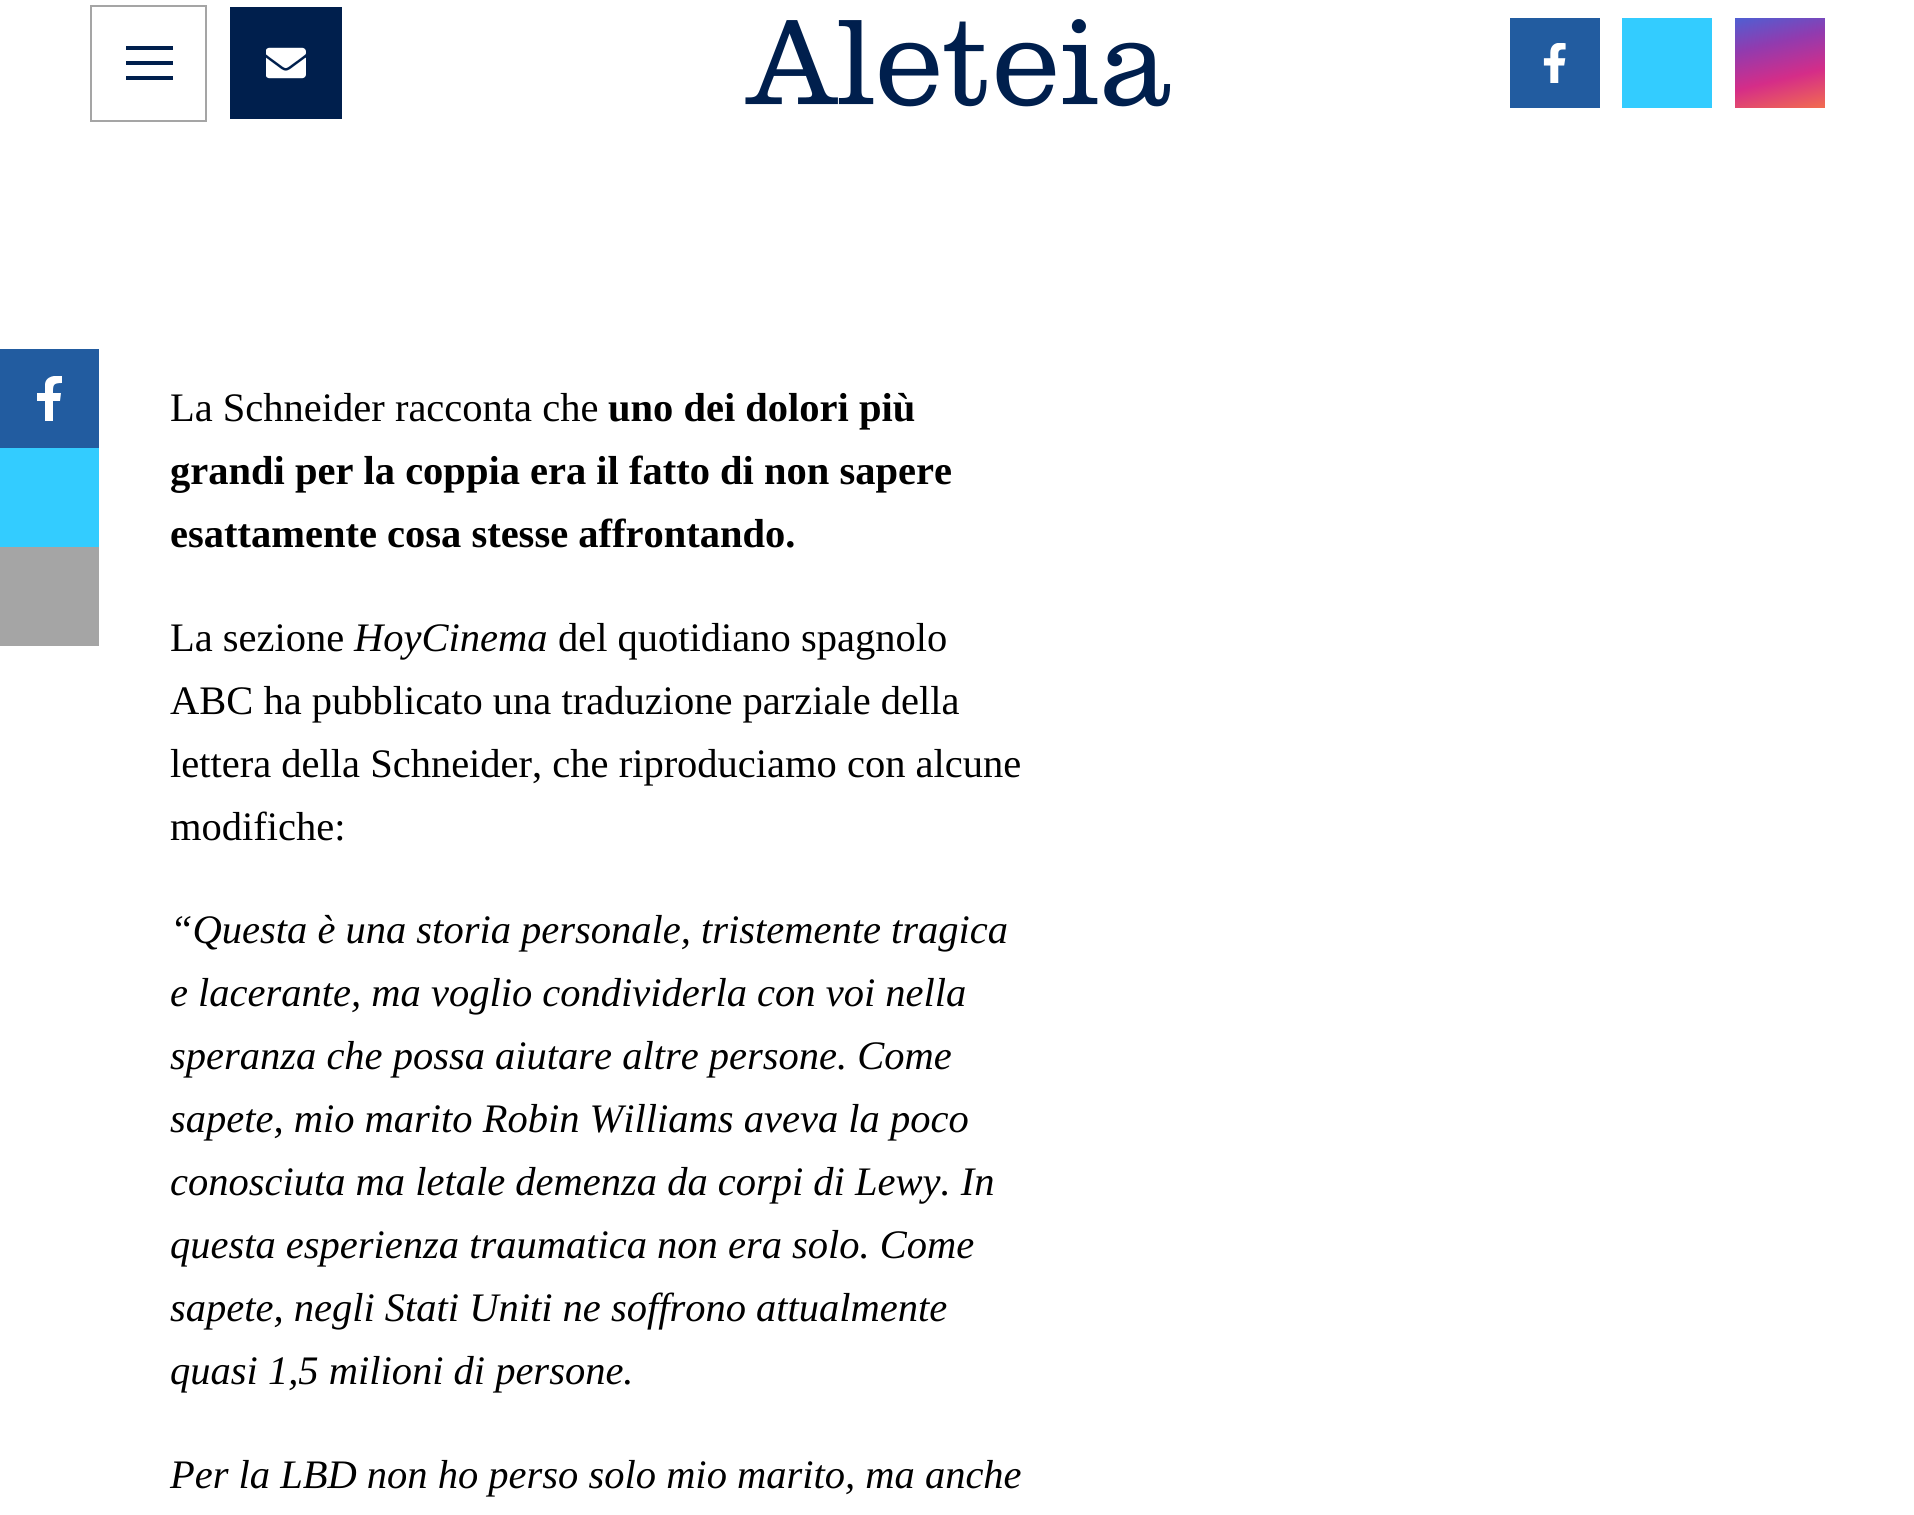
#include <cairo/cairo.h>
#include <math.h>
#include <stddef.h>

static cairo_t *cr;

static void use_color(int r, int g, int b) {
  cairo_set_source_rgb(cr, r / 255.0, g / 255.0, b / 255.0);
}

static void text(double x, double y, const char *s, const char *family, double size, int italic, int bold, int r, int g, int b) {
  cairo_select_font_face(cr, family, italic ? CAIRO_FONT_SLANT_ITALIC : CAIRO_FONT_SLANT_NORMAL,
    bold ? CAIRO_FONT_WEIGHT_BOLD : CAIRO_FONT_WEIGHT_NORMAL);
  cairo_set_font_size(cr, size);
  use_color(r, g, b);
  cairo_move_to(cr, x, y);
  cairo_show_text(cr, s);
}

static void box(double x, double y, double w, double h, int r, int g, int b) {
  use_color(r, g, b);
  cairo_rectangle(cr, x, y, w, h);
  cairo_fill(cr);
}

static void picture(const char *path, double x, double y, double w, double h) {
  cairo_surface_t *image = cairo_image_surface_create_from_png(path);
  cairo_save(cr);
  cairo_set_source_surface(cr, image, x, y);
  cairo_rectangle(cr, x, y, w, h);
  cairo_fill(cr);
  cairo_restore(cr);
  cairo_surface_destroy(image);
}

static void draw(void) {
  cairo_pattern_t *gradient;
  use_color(255, 255, 255);
  cairo_paint(cr);
  cairo_rectangle(cr, 91, 6, 115, 115);
  use_color(165, 165, 165);
  cairo_stroke(cr);
  use_color(0, 31, 77);
  cairo_set_fill_rule(cr, CAIRO_FILL_RULE_EVEN_ODD);
  cairo_new_path(cr);
  cairo_move_to(cr, 126, 76);
  cairo_line_to(cr, 126, 80);
  cairo_line_to(cr, 173, 80);
  cairo_line_to(cr, 173, 76);
  cairo_close_path(cr);
  cairo_move_to(cr, 126, 61);
  cairo_line_to(cr, 126, 65);
  cairo_line_to(cr, 173, 65);
  cairo_line_to(cr, 173, 61);
  cairo_close_path(cr);
  cairo_move_to(cr, 126, 46);
  cairo_line_to(cr, 126, 50);
  cairo_line_to(cr, 173, 50);
  cairo_line_to(cr, 173, 46);
  cairo_close_path(cr);
  cairo_fill(cr);
  box(230, 7, 112, 112, 0, 31, 77);
  picture("img_01.png", 266, 47, 40, 32);
  picture("img_02.png", 745, 19, 426, 88);
  box(1510, 18, 90, 90, 34, 92, 160);
  picture("img_03.png", 1543, 43, 23, 40);
  box(1622, 18, 90, 90, 51, 204, 255);
  gradient = cairo_pattern_create_linear(1767, 10, 1793, 116);
  cairo_pattern_add_color_stop_rgba(gradient, 0, 0.306, 0.373, 0.827, 1);
  cairo_pattern_add_color_stop_rgba(gradient, 0.31, 0.569, 0.231, 0.686, 1);
  cairo_pattern_add_color_stop_rgba(gradient, 0.65, 0.835, 0.176, 0.533, 1);
  cairo_pattern_add_color_stop_rgba(gradient, 1, 0.949, 0.427, 0.31, 1);
  cairo_set_source(cr, gradient);
  cairo_pattern_destroy(gradient);
  cairo_rectangle(cr, 1735, 18, 90, 90);
  cairo_fill(cr);
  box(0, 349, 99, 99, 34, 92, 160);
  cairo_save(cr);
  cairo_set_fill_rule(cr, CAIRO_FILL_RULE_WINDING);
  cairo_rectangle(cr, 27, 376, 45, 45);
  cairo_clip(cr);
  use_color(255, 255, 255);
  cairo_new_path(cr);
  cairo_move_to(cr, 60, 401);
  cairo_line_to(cr, 61, 393);
  cairo_line_to(cr, 53, 393);
  cairo_curve_to(cr, 53, 385, 53, 383, 62, 383);
  cairo_line_to(cr, 62, 376);
  cairo_curve_to(cr, 55, 375, 46, 376, 45, 384);
  cairo_line_to(cr, 45, 393);
  cairo_line_to(cr, 37, 393);
  cairo_line_to(cr, 37, 401);
  cairo_line_to(cr, 45, 401);
  cairo_line_to(cr, 45, 421);
  cairo_line_to(cr, 53, 421);
  cairo_line_to(cr, 53, 401);
  cairo_close_path(cr);
  cairo_fill(cr);
  cairo_restore(cr);
  box(0, 448, 99, 99, 51, 204, 255);
  box(0, 547, 99, 99, 165, 165, 165);
  text(170, 421, "La Schneider racconta che", "Liberation Serif", 40.5, 0, 0, 0, 0, 0);
  text(608, 421, "uno dei dolori più", "Liberation Serif", 40.5, 0, 1, 0, 0, 0);
  text(170, 484, "grandi per la coppia era il fatto di non sapere", "Liberation Serif", 40.5, 0, 1, 0, 0, 0);
  text(170, 547, "esattamente cosa stesse affrontando.", "Liberation Serif", 40.5, 0, 1, 0, 0, 0);
  text(170, 651, "La sezione", "Liberation Serif", 40.5, 0, 0, 0, 0, 0);
  text(354, 651, "HoyCinema", "Liberation Serif", 40.5, 1, 0, 0, 0, 0);
  text(558, 651, "del quotidiano spagnolo", "Liberation Serif", 40.5, 0, 0, 0, 0, 0);
  text(170, 714, "ABC ha pubblicato una traduzione parziale della", "Liberation Serif", 40.5, 0, 0, 0, 0, 0);
  text(170, 777, "lettera della Schneider, che riproduciamo con alcune", "Liberation Serif", 40.5, 0, 0, 0, 0, 0);
  text(170, 840, "modifiche:", "Liberation Serif", 40.5, 0, 0, 0, 0, 0);
  text(170, 943, "“Questa è una storia personale, tristemente tragica", "Liberation Serif", 40.5, 1, 0, 0, 0, 0);
  text(170, 1006, "e lacerante, ma voglio condividerla con voi nella", "Liberation Serif", 40.5, 1, 0, 0, 0, 0);
  text(170, 1069, "speranza che possa aiutare altre persone. Come", "Liberation Serif", 40.5, 1, 0, 0, 0, 0);
  text(170, 1132, "sapete, mio marito Robin Williams aveva la poco", "Liberation Serif", 40.5, 1, 0, 0, 0, 0);
  text(170, 1195, "conosciuta ma letale demenza da corpi di Lewy. In", "Liberation Serif", 40.5, 1, 0, 0, 0, 0);
  text(170, 1258, "questa esperienza traumatica non era solo. Come", "Liberation Serif", 40.5, 1, 0, 0, 0, 0);
  text(170, 1321, "sapete, negli Stati Uniti ne soffrono attualmente", "Liberation Serif", 40.5, 1, 0, 0, 0, 0);
  text(170, 1384, "quasi 1,5 milioni di persone.", "Liberation Serif", 40.5, 1, 0, 0, 0, 0);
  text(170, 1488, "Per la LBD non ho perso solo mio marito, ma anche", "Liberation Serif", 40.5, 1, 0, 0, 0, 0);
}

int main(void) {
  cairo_surface_t *surface = cairo_image_surface_create(CAIRO_FORMAT_RGB24, 1914, 1515);
  cr = cairo_create(surface);
  cairo_font_options_t *options = cairo_font_options_create();
  cairo_font_options_set_hint_metrics(options, CAIRO_HINT_METRICS_OFF);
  cairo_font_options_set_hint_style(options, CAIRO_HINT_STYLE_NONE);
  cairo_set_font_options(cr, options);
  cairo_set_miter_limit(cr, 4);
  draw();
  cairo_surface_write_to_png(surface, "out.png");
  cairo_font_options_destroy(options);
  cairo_destroy(cr);
  cairo_surface_destroy(surface);
  return 0;
}
